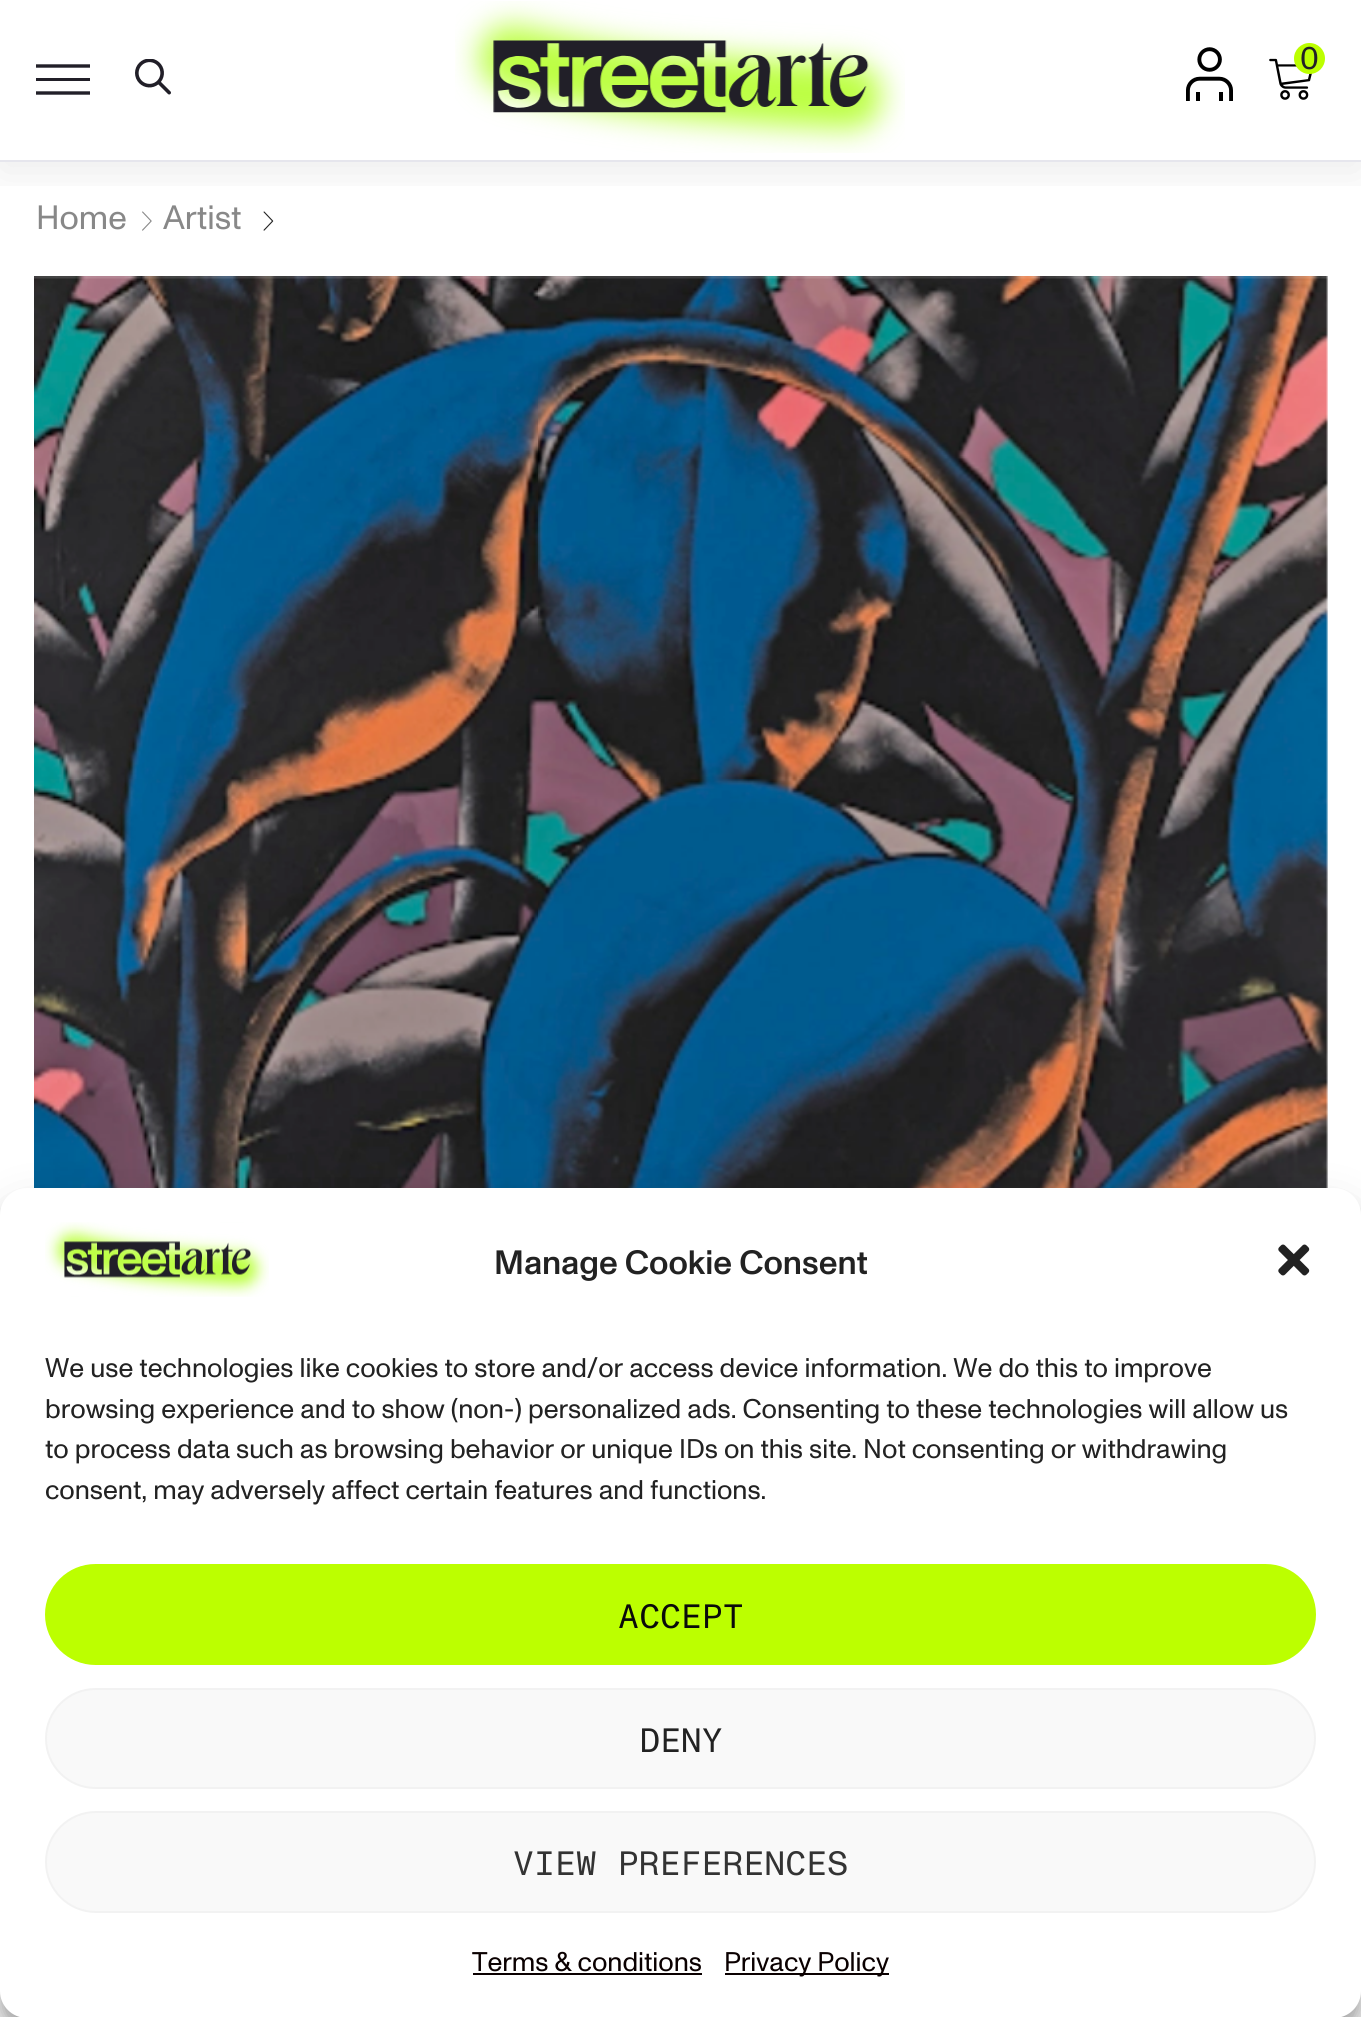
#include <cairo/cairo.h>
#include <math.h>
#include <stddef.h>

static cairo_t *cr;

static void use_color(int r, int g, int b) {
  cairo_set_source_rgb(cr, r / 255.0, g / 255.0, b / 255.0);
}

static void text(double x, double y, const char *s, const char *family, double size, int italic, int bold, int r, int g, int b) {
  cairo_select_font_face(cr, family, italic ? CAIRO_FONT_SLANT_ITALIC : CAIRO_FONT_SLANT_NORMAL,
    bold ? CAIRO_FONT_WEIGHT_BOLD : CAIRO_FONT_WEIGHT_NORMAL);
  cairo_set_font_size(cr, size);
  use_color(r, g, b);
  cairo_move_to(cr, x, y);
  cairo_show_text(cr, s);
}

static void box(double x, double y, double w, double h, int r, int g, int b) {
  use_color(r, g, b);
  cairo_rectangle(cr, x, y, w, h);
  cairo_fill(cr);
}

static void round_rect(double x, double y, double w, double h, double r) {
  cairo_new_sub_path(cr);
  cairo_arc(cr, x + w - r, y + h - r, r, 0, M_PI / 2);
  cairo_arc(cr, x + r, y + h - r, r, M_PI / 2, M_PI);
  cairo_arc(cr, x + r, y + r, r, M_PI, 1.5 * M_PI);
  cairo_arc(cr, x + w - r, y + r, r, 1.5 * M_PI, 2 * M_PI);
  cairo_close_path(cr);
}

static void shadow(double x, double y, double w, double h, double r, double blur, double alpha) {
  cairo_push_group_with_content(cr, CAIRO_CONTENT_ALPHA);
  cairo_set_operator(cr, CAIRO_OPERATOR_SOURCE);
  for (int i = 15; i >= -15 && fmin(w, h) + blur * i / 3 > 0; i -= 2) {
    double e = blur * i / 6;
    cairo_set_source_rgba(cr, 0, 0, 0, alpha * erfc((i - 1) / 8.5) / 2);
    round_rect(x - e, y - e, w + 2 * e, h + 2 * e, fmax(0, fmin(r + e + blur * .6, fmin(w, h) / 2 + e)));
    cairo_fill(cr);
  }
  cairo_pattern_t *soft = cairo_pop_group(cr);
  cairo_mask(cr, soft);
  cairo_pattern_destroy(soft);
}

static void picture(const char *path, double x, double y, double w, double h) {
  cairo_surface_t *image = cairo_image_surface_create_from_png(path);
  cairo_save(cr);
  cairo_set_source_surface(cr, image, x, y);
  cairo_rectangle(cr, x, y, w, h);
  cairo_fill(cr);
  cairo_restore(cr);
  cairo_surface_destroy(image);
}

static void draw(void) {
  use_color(255, 255, 255);
  cairo_paint(cr);
  picture("img_05.png", 142, 211, 10, 20);
  picture("img_06.png", 263, 211, 11, 20);
  cairo_save(cr);
  cairo_rectangle(cr, 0, 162, 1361, 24);
  cairo_clip(cr);
  use_color(0, 0, 0);
  shadow(0, 9, 1361, 162, 0, 22.5, 0.08);
  cairo_restore(cr);
  box(0, 160, 1361, 2, 230, 230, 237);
  cairo_new_path(cr);
  cairo_move_to(cr, 36, 66);
  cairo_line_to(cr, 90, 66);
  use_color(33, 31, 40);
  cairo_set_line_width(cr, 3.4);
  cairo_stroke(cr);
  box(36, 78, 54, 3, 33, 31, 40);
  cairo_new_path(cr);
  cairo_move_to(cr, 36, 93);
  cairo_line_to(cr, 90, 93);
  cairo_stroke(cr);
  picture("img_01.png", 135, 59, 36, 36);
  picture("img_02.png", 455, 1, 450, 152);
  picture("img_03.png", 1186, 47, 47, 54);
  picture("img_04.png", 1269, 58, 43, 42);
  use_color(188, 255, 0);
  cairo_arc(cr, 1309.5, 58.5, 15.5, 0, 2 * M_PI);
  cairo_fill(cr);
  picture("img_07.png", 34, 276, 1294, 912);
  use_color(0, 0, 0);
  shadow(0, 1202, 1361, 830, 27, 7, 0.23);
  shadow(0, 1211, 1361, 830, 27, 22.5, 0.19);
  use_color(255, 255, 255);
  round_rect(0, 1188, 1361, 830, 27);
  cairo_fill(cr);
  picture("img_08.png", 45, 1222, 224, 75);
  picture("img_09.png", 1278, 1244, 32, 32);
  use_color(188, 255, 0);
  round_rect(46, 1565, 1269, 99, 49.5);
  cairo_fill_preserve(cr);
  cairo_set_line_width(cr, 2);
  cairo_stroke(cr);
  use_color(249, 249, 249);
  round_rect(46, 1689, 1269, 99, 49.5);
  cairo_fill_preserve(cr);
  use_color(242, 242, 242);
  cairo_stroke(cr);
  use_color(249, 249, 249);
  round_rect(46, 1812, 1269, 100, 50);
  cairo_fill_preserve(cr);
  use_color(242, 242, 242);
  cairo_stroke(cr);
  box(473, 1973, 229, 2, 10, 0, 0);
  box(725, 1973, 164, 2, 10, 0, 0);
  text(1300, 69, "0", "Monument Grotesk", 32, 0, 0, 33, 31, 40);
  text(36, 229, "Home", "Monument Grotesk", 33.75, 0, 0, 136, 136, 136);
  text(163, 229, "Artist", "Monument Grotesk", 33.75, 0, 0, 136, 136, 136);
  text(494, 1274, "Manage Cookie Consent", "Monument Grotesk Medium", 33.75, 0, 0, 34, 34, 34);
  text(45, 1377, "We use technologies like cookies to store and/or access device information. We do this to improve", "Monument Grotesk", 27, 0, 0, 34, 34, 34);
  text(45, 1418, "browsing experience and to show (non-) personalized ads. Consenting to these technologies will allow us", "Monument Grotesk", 27, 0, 0, 34, 34, 34);
  text(45, 1458, "to process data such as browsing behavior or unique IDs on this site. Not consenting or withdrawing", "Monument Grotesk", 27, 0, 0, 34, 34, 34);
  text(45, 1499, "consent, may adversely affect certain features and functions.", "Monument Grotesk", 27, 0, 0, 34, 34, 34);
  text(618, 1628, "ACCEPT", "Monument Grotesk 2", 33.75, 0, 0, 10, 10, 10);
  text(639, 1752, "DENY", "Monument Grotesk 2", 33.75, 0, 0, 34, 34, 34);
  text(513, 1875, "VIEW PREFERENCES", "Monument Grotesk 2", 33.75, 0, 0, 51, 51, 51);
  text(472, 1971, "Terms & conditions", "Monument Grotesk", 27, 0, 0, 10, 0, 0);
  text(724, 1971, "Privacy Policy", "Monument Grotesk", 27, 0, 0, 10, 0, 0);
}

int main(void) {
  cairo_surface_t *surface = cairo_image_surface_create(CAIRO_FORMAT_RGB24, 1361, 2017);
  cr = cairo_create(surface);
  cairo_font_options_t *options = cairo_font_options_create();
  cairo_font_options_set_hint_metrics(options, CAIRO_HINT_METRICS_OFF);
  cairo_font_options_set_hint_style(options, CAIRO_HINT_STYLE_NONE);
  cairo_set_font_options(cr, options);
  cairo_set_miter_limit(cr, 4);
  draw();
  cairo_surface_write_to_png(surface, "out.png");
  cairo_font_options_destroy(options);
  cairo_destroy(cr);
  cairo_surface_destroy(surface);
  return 0;
}
